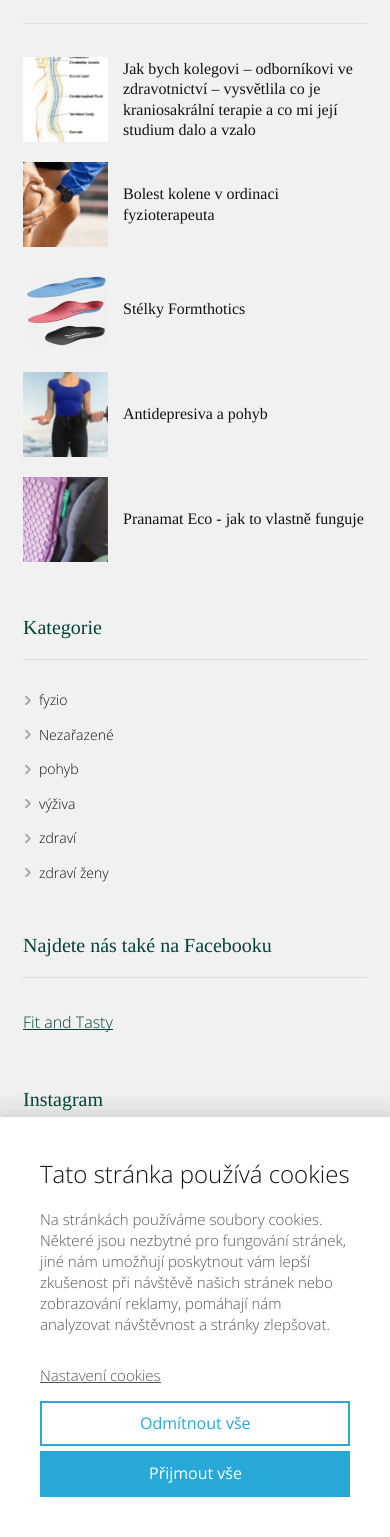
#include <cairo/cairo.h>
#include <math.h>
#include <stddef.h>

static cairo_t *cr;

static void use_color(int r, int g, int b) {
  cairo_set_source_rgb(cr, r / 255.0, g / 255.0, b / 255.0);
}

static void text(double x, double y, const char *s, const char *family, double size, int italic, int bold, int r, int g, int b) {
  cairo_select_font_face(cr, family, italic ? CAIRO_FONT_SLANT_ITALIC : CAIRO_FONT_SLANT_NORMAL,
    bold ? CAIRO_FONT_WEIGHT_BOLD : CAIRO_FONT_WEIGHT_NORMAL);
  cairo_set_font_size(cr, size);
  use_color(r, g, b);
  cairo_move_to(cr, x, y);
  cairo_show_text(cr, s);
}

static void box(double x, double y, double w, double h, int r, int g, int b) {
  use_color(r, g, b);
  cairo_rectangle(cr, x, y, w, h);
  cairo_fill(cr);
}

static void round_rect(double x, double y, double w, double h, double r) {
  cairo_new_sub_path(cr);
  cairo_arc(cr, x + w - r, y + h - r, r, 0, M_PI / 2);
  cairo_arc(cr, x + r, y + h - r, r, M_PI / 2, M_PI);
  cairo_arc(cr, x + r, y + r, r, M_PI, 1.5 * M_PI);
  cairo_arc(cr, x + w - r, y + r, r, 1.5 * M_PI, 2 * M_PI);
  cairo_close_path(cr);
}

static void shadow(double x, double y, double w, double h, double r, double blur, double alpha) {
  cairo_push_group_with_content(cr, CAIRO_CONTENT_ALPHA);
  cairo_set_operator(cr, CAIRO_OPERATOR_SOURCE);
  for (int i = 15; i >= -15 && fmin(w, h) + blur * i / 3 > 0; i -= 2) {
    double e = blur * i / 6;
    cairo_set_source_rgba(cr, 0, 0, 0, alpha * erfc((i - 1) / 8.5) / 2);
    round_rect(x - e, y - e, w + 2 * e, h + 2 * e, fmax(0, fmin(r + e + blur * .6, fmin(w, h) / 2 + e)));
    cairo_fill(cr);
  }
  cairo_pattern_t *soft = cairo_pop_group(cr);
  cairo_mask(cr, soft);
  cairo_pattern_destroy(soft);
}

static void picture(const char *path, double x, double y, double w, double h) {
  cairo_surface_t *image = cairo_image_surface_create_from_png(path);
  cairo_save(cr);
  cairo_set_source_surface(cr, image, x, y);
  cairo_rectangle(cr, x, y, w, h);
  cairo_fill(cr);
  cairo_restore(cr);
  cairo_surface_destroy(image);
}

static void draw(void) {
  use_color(241, 241, 241);
  cairo_paint(cr);
  box(23, 23, 344, 1, 222, 222, 222);
  picture("img_01.png", 23, 57, 85, 85);
  picture("img_02.png", 23, 162, 85, 85);
  picture("img_03.png", 27, 276, 79, 70);
  picture("img_04.png", 23, 372, 85, 85);
  picture("img_05.png", 23, 477, 85, 85);
  box(23, 659, 344, 1, 222, 222, 222);
  picture("img_06.png", 25, 696, 6, 9);
  picture("img_06.png", 25, 730, 6, 9);
  picture("img_06.png", 25, 765, 6, 9);
  picture("img_06.png", 25, 799, 6, 9);
  picture("img_06.png", 25, 834, 6, 9);
  picture("img_06.png", 25, 868, 6, 9);
  box(23, 977, 344, 1, 222, 222, 222);
  box(23, 1029, 90, 1, 4, 65, 54);
  use_color(0, 0, 0);
  shadow(0, 1117, 390, 420, 0, 15, 0.2);
  box(0, 1117, 390, 420, 255, 255, 255);
  box(40, 1382, 121, 1, 85, 85, 85);
  cairo_rectangle(cr, 41, 1402, 308, 43);
  use_color(39, 168, 215);
  cairo_stroke(cr);
  box(40, 1451, 310, 46, 39, 168, 215);
  text(123, 74, "Jak bych kolegovi – odborníkovi ve", "Liberation Serif", 16, 0, 0, 17, 17, 17);
  text(123, 94, "zdravotnictví – vysvětlila co je", "Liberation Serif", 16, 0, 0, 17, 17, 17);
  text(123, 115, "kraniosakrální terapie a co mi její", "Liberation Serif", 16, 0, 0, 17, 17, 17);
  text(123, 135, "studium dalo a vzalo", "Liberation Serif", 16, 0, 0, 17, 17, 17);
  text(123, 199, "Bolest kolene v ordinaci", "Liberation Serif", 16, 0, 0, 17, 17, 17);
  text(123, 220, "fyzioterapeuta", "Liberation Serif", 16, 0, 0, 17, 17, 17);
  text(123, 314, "Stélky Formthotics", "Liberation Serif", 16, 0, 0, 17, 17, 17);
  text(123, 419, "Antidepresiva a pohyb", "Liberation Serif", 16, 0, 0, 17, 17, 17);
  text(123, 524, "Pranamat Eco - jak to vlastně funguje", "Liberation Serif", 16, 0, 0, 17, 17, 17);
  text(23, 634, "Kategorie", "Liberation Serif", 20, 0, 0, 4, 65, 54);
  text(39, 705, "fyzio", "Open Sans Light", 14, 0, 0, 17, 17, 17);
  text(39, 740, "Nezařazené", "Open Sans Light", 14, 0, 0, 17, 17, 17);
  text(39, 774, "pohyb", "Open Sans Light", 14, 0, 0, 17, 17, 17);
  text(39, 809, "výživa", "Open Sans Light", 14, 0, 0, 17, 17, 17);
  text(39, 843, "zdraví", "Open Sans Light", 14, 0, 0, 17, 17, 17);
  text(39, 878, "zdraví ženy", "Open Sans Light", 14, 0, 0, 17, 17, 17);
  text(23, 952, "Najdete nás také na Facebooku", "Liberation Serif", 20, 0, 0, 4, 65, 54);
  text(23, 1028, "Fit and Tasty", "Open Sans Light", 16, 0, 0, 4, 65, 54);
  text(23, 1106, "Instagram", "Liberation Serif", 20, 0, 0, 4, 65, 54);
  text(40, 1183, "Tato stránka používá cookies", "Open Sans Light", 24, 0, 0, 17, 17, 17);
  text(40, 1225, "Na stránkách používáme soubory cookies.", "Open Sans Light", 15, 0, 0, 85, 85, 85);
  text(40, 1246, "Některé jsou nezbytné pro fungování stránek,", "Open Sans Light", 15, 0, 0, 85, 85, 85);
  text(40, 1267, "jiné nám umožňují poskytnout vám lepší", "Open Sans Light", 15, 0, 0, 85, 85, 85);
  text(40, 1288, "zkušenost při návštěvě našich stránek nebo", "Open Sans Light", 15, 0, 0, 85, 85, 85);
  text(40, 1309, "zobrazování reklamy, pomáhají nám", "Open Sans Light", 15, 0, 0, 85, 85, 85);
  text(40, 1330, "analyzovat návštěvnost a stránky zlepšovat.", "Open Sans Light", 15, 0, 0, 85, 85, 85);
  text(40, 1381, "Nastavení cookies", "Open Sans Light", 15, 0, 0, 85, 85, 85);
  text(140, 1429, "Odmítnout vše", "Open Sans", 16, 0, 0, 39, 168, 215);
  text(149, 1479, "Přijmout vše", "Open Sans", 16, 0, 0, 255, 255, 255);
}

int main(void) {
  cairo_surface_t *surface = cairo_image_surface_create(CAIRO_FORMAT_RGB24, 390, 1537);
  cr = cairo_create(surface);
  cairo_font_options_t *options = cairo_font_options_create();
  cairo_font_options_set_hint_metrics(options, CAIRO_HINT_METRICS_OFF);
  cairo_font_options_set_hint_style(options, CAIRO_HINT_STYLE_NONE);
  cairo_set_font_options(cr, options);
  cairo_set_miter_limit(cr, 4);
  draw();
  cairo_surface_write_to_png(surface, "out.png");
  cairo_font_options_destroy(options);
  cairo_destroy(cr);
  cairo_surface_destroy(surface);
  return 0;
}
